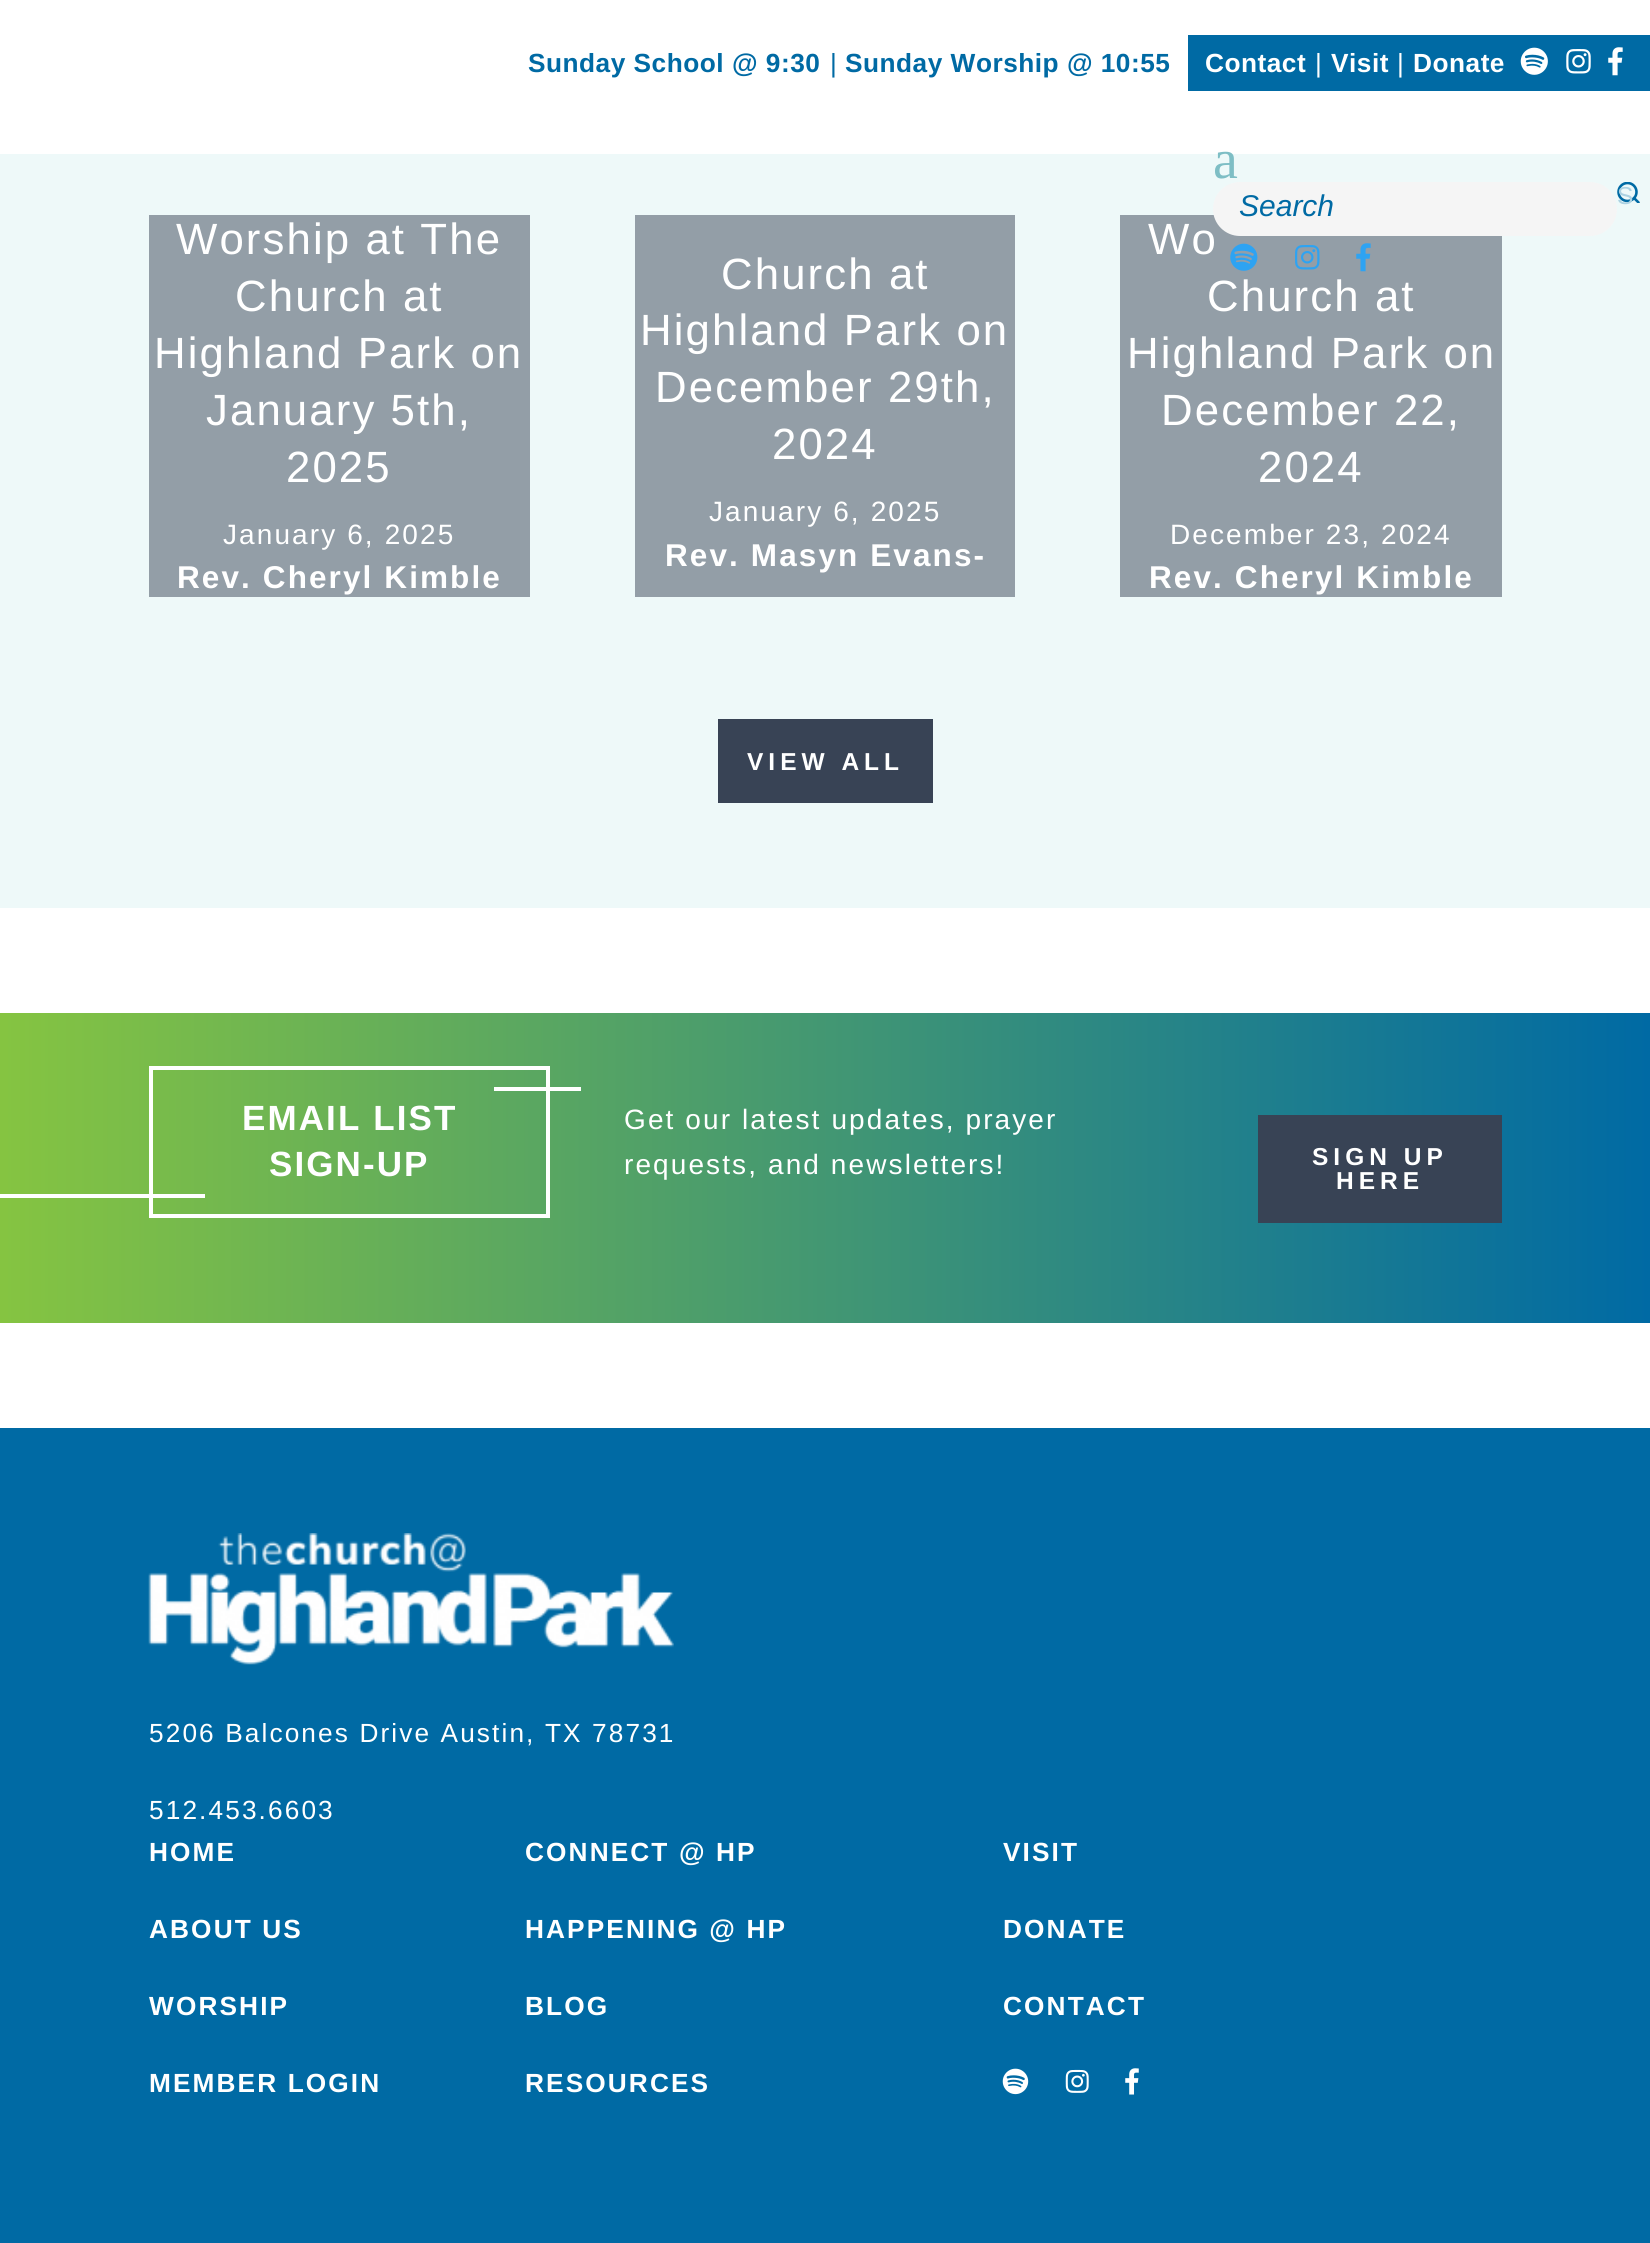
#include <cairo/cairo.h>
#include <math.h>
#include <stddef.h>

static cairo_t *cr;

static void use_color(int r, int g, int b) {
  cairo_set_source_rgb(cr, r / 255.0, g / 255.0, b / 255.0);
}

static void text(double x, double y, const char *s, const char *family, double size, int italic, int bold, int r, int g, int b) {
  cairo_select_font_face(cr, family, italic ? CAIRO_FONT_SLANT_ITALIC : CAIRO_FONT_SLANT_NORMAL,
    bold ? CAIRO_FONT_WEIGHT_BOLD : CAIRO_FONT_WEIGHT_NORMAL);
  cairo_set_font_size(cr, size);
  use_color(r, g, b);
  cairo_move_to(cr, x, y);
  cairo_show_text(cr, s);
}

static void spaced_text(double x, double y, const char *s, double letter, double word) {
  cairo_move_to(cr, x, y);
  while (*s) {
    char ch[5] = {0};
    int n = 0;
    do ch[n++] = *s++; while ((*s & 0xC0) == 0x80);
    cairo_show_text(cr, ch);
    cairo_rel_move_to(cr, letter + word * (*ch == ' '), 0);
  }
}

static void box(double x, double y, double w, double h, int r, int g, int b) {
  use_color(r, g, b);
  cairo_rectangle(cr, x, y, w, h);
  cairo_fill(cr);
}

static void round_rect(double x, double y, double w, double h, double r) {
  cairo_new_sub_path(cr);
  cairo_arc(cr, x + w - r, y + h - r, r, 0, M_PI / 2);
  cairo_arc(cr, x + r, y + h - r, r, M_PI / 2, M_PI);
  cairo_arc(cr, x + r, y + r, r, M_PI, 1.5 * M_PI);
  cairo_arc(cr, x + w - r, y + r, r, 1.5 * M_PI, 2 * M_PI);
  cairo_close_path(cr);
}

static void picture(const char *path, double x, double y, double w, double h) {
  cairo_surface_t *image = cairo_image_surface_create_from_png(path);
  cairo_save(cr);
  cairo_set_source_surface(cr, image, x, y);
  cairo_rectangle(cr, x, y, w, h);
  cairo_fill(cr);
  cairo_restore(cr);
  cairo_surface_destroy(image);
}

static void draw(void) {
  cairo_pattern_t *gradient;
  use_color(255, 255, 255);
  cairo_paint(cr);
  box(1188, 35, 462, 56, 0, 106, 164);
  picture("img_01.png", 1520, 47, 28, 28);
  picture("img_02.png", 1566, 49, 25, 25);
  picture("img_03.png", 1608, 47, 15, 29);
  box(0, 154, 1650, 754, 238, 249, 249);
  cairo_save(cr);
  cairo_rectangle(cr, 1617, 182, 23, 21);
  cairo_clip(cr);
  cairo_arc(cr, 1627.5, 192, 9, 0, 2 * M_PI);
  use_color(0, 106, 164);
  cairo_set_line_width(cr, 2.6);
  cairo_stroke(cr);
  cairo_new_path(cr);
  cairo_move_to(cr, 1634, 198);
  cairo_line_to(cr, 1638.5, 202.5);
  cairo_set_line_cap(cr, CAIRO_LINE_CAP_ROUND);
  cairo_stroke(cr);
  cairo_restore(cr);
  box(1120, 215, 382, 382, 147, 158, 167);
  picture("img_04.png", 1230, 243, 28, 28);
  picture("img_05.png", 1295, 245, 25, 25);
  picture("img_06.png", 1356, 243, 15, 29);
  box(149, 215, 381, 382, 147, 158, 167);
  box(635, 215, 380, 382, 147, 158, 167);
  box(718, 719, 215, 84, 56, 67, 85);
  gradient = cairo_pattern_create_linear(0, 1168, 1650, 1168);
  cairo_pattern_add_color_stop_rgba(gradient, 0, 0.522, 0.769, 0.255, 1);
  cairo_pattern_add_color_stop_rgba(gradient, 1, 0, 0.416, 0.643, 1);
  cairo_set_source(cr, gradient);
  cairo_pattern_destroy(gradient);
  cairo_rectangle(cr, 0, 1013, 1650, 310);
  cairo_fill(cr);
  cairo_rectangle(cr, 151, 1068, 397, 148);
  use_color(255, 255, 255);
  cairo_set_line_width(cr, 4);
  cairo_stroke(cr);
  box(494, 1087, 87, 4, 255, 255, 255);
  box(0, 1194, 205, 4, 255, 255, 255);
  box(1258, 1115, 244, 108, 56, 67, 85);
  box(0, 1428, 1650, 815, 0, 106, 164);
  picture("img_07.png", 148, 1533, 526, 132);
  picture("img_08.png", 1002, 2068, 27, 27);
  picture("img_09.png", 1065, 2069, 24, 24);
  picture("img_10.png", 1125, 2068, 14, 27);
  cairo_select_font_face(cr, "Liberation Sans", CAIRO_FONT_SLANT_NORMAL, CAIRO_FONT_WEIGHT_BOLD);
  cairo_set_font_size(cr, 26.25);
  spaced_text(528, 72, "Sunday School @ 9:30", 0.5, 0);
  cairo_select_font_face(cr, "Liberation Sans", CAIRO_FONT_SLANT_NORMAL, CAIRO_FONT_WEIGHT_NORMAL);
  spaced_text(830, 72, "|", 0.5, 0);
  cairo_select_font_face(cr, "Liberation Sans", CAIRO_FONT_SLANT_NORMAL, CAIRO_FONT_WEIGHT_BOLD);
  spaced_text(845, 72, "Sunday Worship @ 10:55", 0.5, 0);
  use_color(255, 255, 255);
  spaced_text(1205, 72, "Contact", 0.5, 0);
  cairo_select_font_face(cr, "Liberation Sans", CAIRO_FONT_SLANT_NORMAL, CAIRO_FONT_WEIGHT_NORMAL);
  spaced_text(1315, 72, "|", 0.5, 0);
  cairo_select_font_face(cr, "Liberation Sans", CAIRO_FONT_SLANT_NORMAL, CAIRO_FONT_WEIGHT_BOLD);
  spaced_text(1331, 72, "Visit", 0.5, 0);
  cairo_select_font_face(cr, "Liberation Sans", CAIRO_FONT_SLANT_NORMAL, CAIRO_FONT_WEIGHT_NORMAL);
  spaced_text(1397, 72, "|", 0.5, 0);
  cairo_select_font_face(cr, "Liberation Sans", CAIRO_FONT_SLANT_NORMAL, CAIRO_FONT_WEIGHT_BOLD);
  spaced_text(1413, 72, "Donate", 0.5, 0);
  cairo_select_font_face(cr, "Liberation Serif", CAIRO_FONT_SLANT_NORMAL, CAIRO_FONT_WEIGHT_NORMAL);
  cairo_set_font_size(cr, 56);
  use_color(126, 190, 197);
  spaced_text(1213, 178, "a", 2.1, 0);
  text(1617, 204, "S", "Liberation Sans", 24.5, 0, 0, 173, 210, 226);
  cairo_set_font_size(cr, 43.75);
  use_color(255, 255, 255);
  spaced_text(176, 254, "Worship at The", 2.1, 0);
  spaced_text(235, 311, "Church at", 2.1, 0);
  spaced_text(154, 368, "Highland Park on", 2.1, 0);
  spaced_text(206, 425, "January 5th,", 2.1, 0);
  spaced_text(286, 482, "2025", 2.1, 0);
  cairo_set_font_size(cr, 28);
  spaced_text(223, 544, "January 6, 2025", 2.1, 0);
  cairo_select_font_face(cr, "Liberation Sans", CAIRO_FONT_SLANT_NORMAL, CAIRO_FONT_WEIGHT_BOLD);
  cairo_set_font_size(cr, 31.5);
  spaced_text(177, 588, "Rev. Cheryl Kimble", 2.1, 0);
  cairo_select_font_face(cr, "Liberation Sans", CAIRO_FONT_SLANT_NORMAL, CAIRO_FONT_WEIGHT_NORMAL);
  cairo_set_font_size(cr, 43.75);
  spaced_text(721, 289, "Church at", 2.1, 0);
  spaced_text(640, 345, "Highland Park on", 2.1, 0);
  spaced_text(655, 402, "December 29th,", 2.1, 0);
  spaced_text(772, 459, "2024", 2.1, 0);
  cairo_set_font_size(cr, 28);
  spaced_text(709, 521, "January 6, 2025", 2.1, 0);
  cairo_select_font_face(cr, "Liberation Sans", CAIRO_FONT_SLANT_NORMAL, CAIRO_FONT_WEIGHT_BOLD);
  cairo_set_font_size(cr, 31.5);
  spaced_text(665, 566, "Rev. Masyn Evans-", 2.1, 0);
  cairo_select_font_face(cr, "Liberation Sans", CAIRO_FONT_SLANT_NORMAL, CAIRO_FONT_WEIGHT_NORMAL);
  cairo_set_font_size(cr, 43.75);
  spaced_text(1148, 254, "Wo", 2.1, 0);
  use_color(245, 245, 245);
  round_rect(1213, 182, 404, 54, 27);
  cairo_fill(cr);
  text(1239, 216, "Search", "Liberation Sans", 30, 1, 0, 0, 106, 164);
  cairo_select_font_face(cr, "Liberation Sans", CAIRO_FONT_SLANT_NORMAL, CAIRO_FONT_WEIGHT_NORMAL);
  cairo_set_font_size(cr, 43.75);
  use_color(255, 255, 255);
  spaced_text(1207, 311, "Church at", 2.1, 0);
  spaced_text(1127, 368, "Highland Park on", 2.1, 0);
  spaced_text(1161, 425, "December 22,", 2.1, 0);
  spaced_text(1258, 482, "2024", 2.1, 0);
  cairo_set_font_size(cr, 28);
  spaced_text(1170, 544, "December 23, 2024", 2.1, 0);
  cairo_select_font_face(cr, "Liberation Sans", CAIRO_FONT_SLANT_NORMAL, CAIRO_FONT_WEIGHT_BOLD);
  cairo_set_font_size(cr, 31.5);
  spaced_text(1149, 588, "Rev. Cheryl Kimble", 2.1, 0);
  cairo_set_font_size(cr, 24.5);
  spaced_text(747, 770, "VIEW ALL", 5, 0);
  cairo_set_font_size(cr, 35);
  spaced_text(242, 1130, "EMAIL LIST", 2.1, 0);
  spaced_text(269, 1176, "SIGN-UP", 2.1, 0);
  cairo_select_font_face(cr, "Liberation Sans", CAIRO_FONT_SLANT_NORMAL, CAIRO_FONT_WEIGHT_NORMAL);
  cairo_set_font_size(cr, 28);
  spaced_text(624, 1129, "Get our latest updates, prayer", 2.1, 0);
  spaced_text(624, 1174, "requests, and newsletters!", 2.1, 0);
  cairo_select_font_face(cr, "Liberation Sans", CAIRO_FONT_SLANT_NORMAL, CAIRO_FONT_WEIGHT_BOLD);
  cairo_set_font_size(cr, 24.5);
  spaced_text(1312, 1165, "SIGN UP", 5, 0);
  spaced_text(1336, 1189, "HERE", 5, 0);
  cairo_select_font_face(cr, "Liberation Sans", CAIRO_FONT_SLANT_NORMAL, CAIRO_FONT_WEIGHT_NORMAL);
  cairo_set_font_size(cr, 26.25);
  spaced_text(149, 1742, "5206 Balcones Drive Austin, TX 78731", 2.1, 0);
  spaced_text(149, 1819, "512.453.6603", 2.1, 0);
  cairo_select_font_face(cr, "Liberation Sans", CAIRO_FONT_SLANT_NORMAL, CAIRO_FONT_WEIGHT_BOLD);
  spaced_text(149, 1861, "HOME", 2.1, 0);
  spaced_text(149, 1938, "ABOUT US", 2.1, 0);
  spaced_text(149, 2015, "WORSHIP", 2.1, 0);
  spaced_text(149, 2092, "MEMBER LOGIN", 2.1, 0);
  spaced_text(525, 1861, "CONNECT @ HP", 2.1, 0);
  spaced_text(525, 1938, "HAPPENING @ HP", 2.1, 0);
  spaced_text(525, 2015, "BLOG", 2.1, 0);
  spaced_text(525, 2092, "RESOURCES", 2.1, 0);
  spaced_text(1003, 1861, "VISIT", 2.1, 0);
  spaced_text(1003, 1938, "DONATE", 2.1, 0);
  spaced_text(1003, 2015, "CONTACT", 2.1, 0);
}

int main(void) {
  cairo_surface_t *surface = cairo_image_surface_create(CAIRO_FORMAT_RGB24, 1650, 2243);
  cr = cairo_create(surface);
  cairo_font_options_t *options = cairo_font_options_create();
  cairo_font_options_set_hint_metrics(options, CAIRO_HINT_METRICS_OFF);
  cairo_font_options_set_hint_style(options, CAIRO_HINT_STYLE_NONE);
  cairo_set_font_options(cr, options);
  cairo_set_miter_limit(cr, 4);
  draw();
  cairo_surface_write_to_png(surface, "out.png");
  cairo_font_options_destroy(options);
  cairo_destroy(cr);
  cairo_surface_destroy(surface);
  return 0;
}
